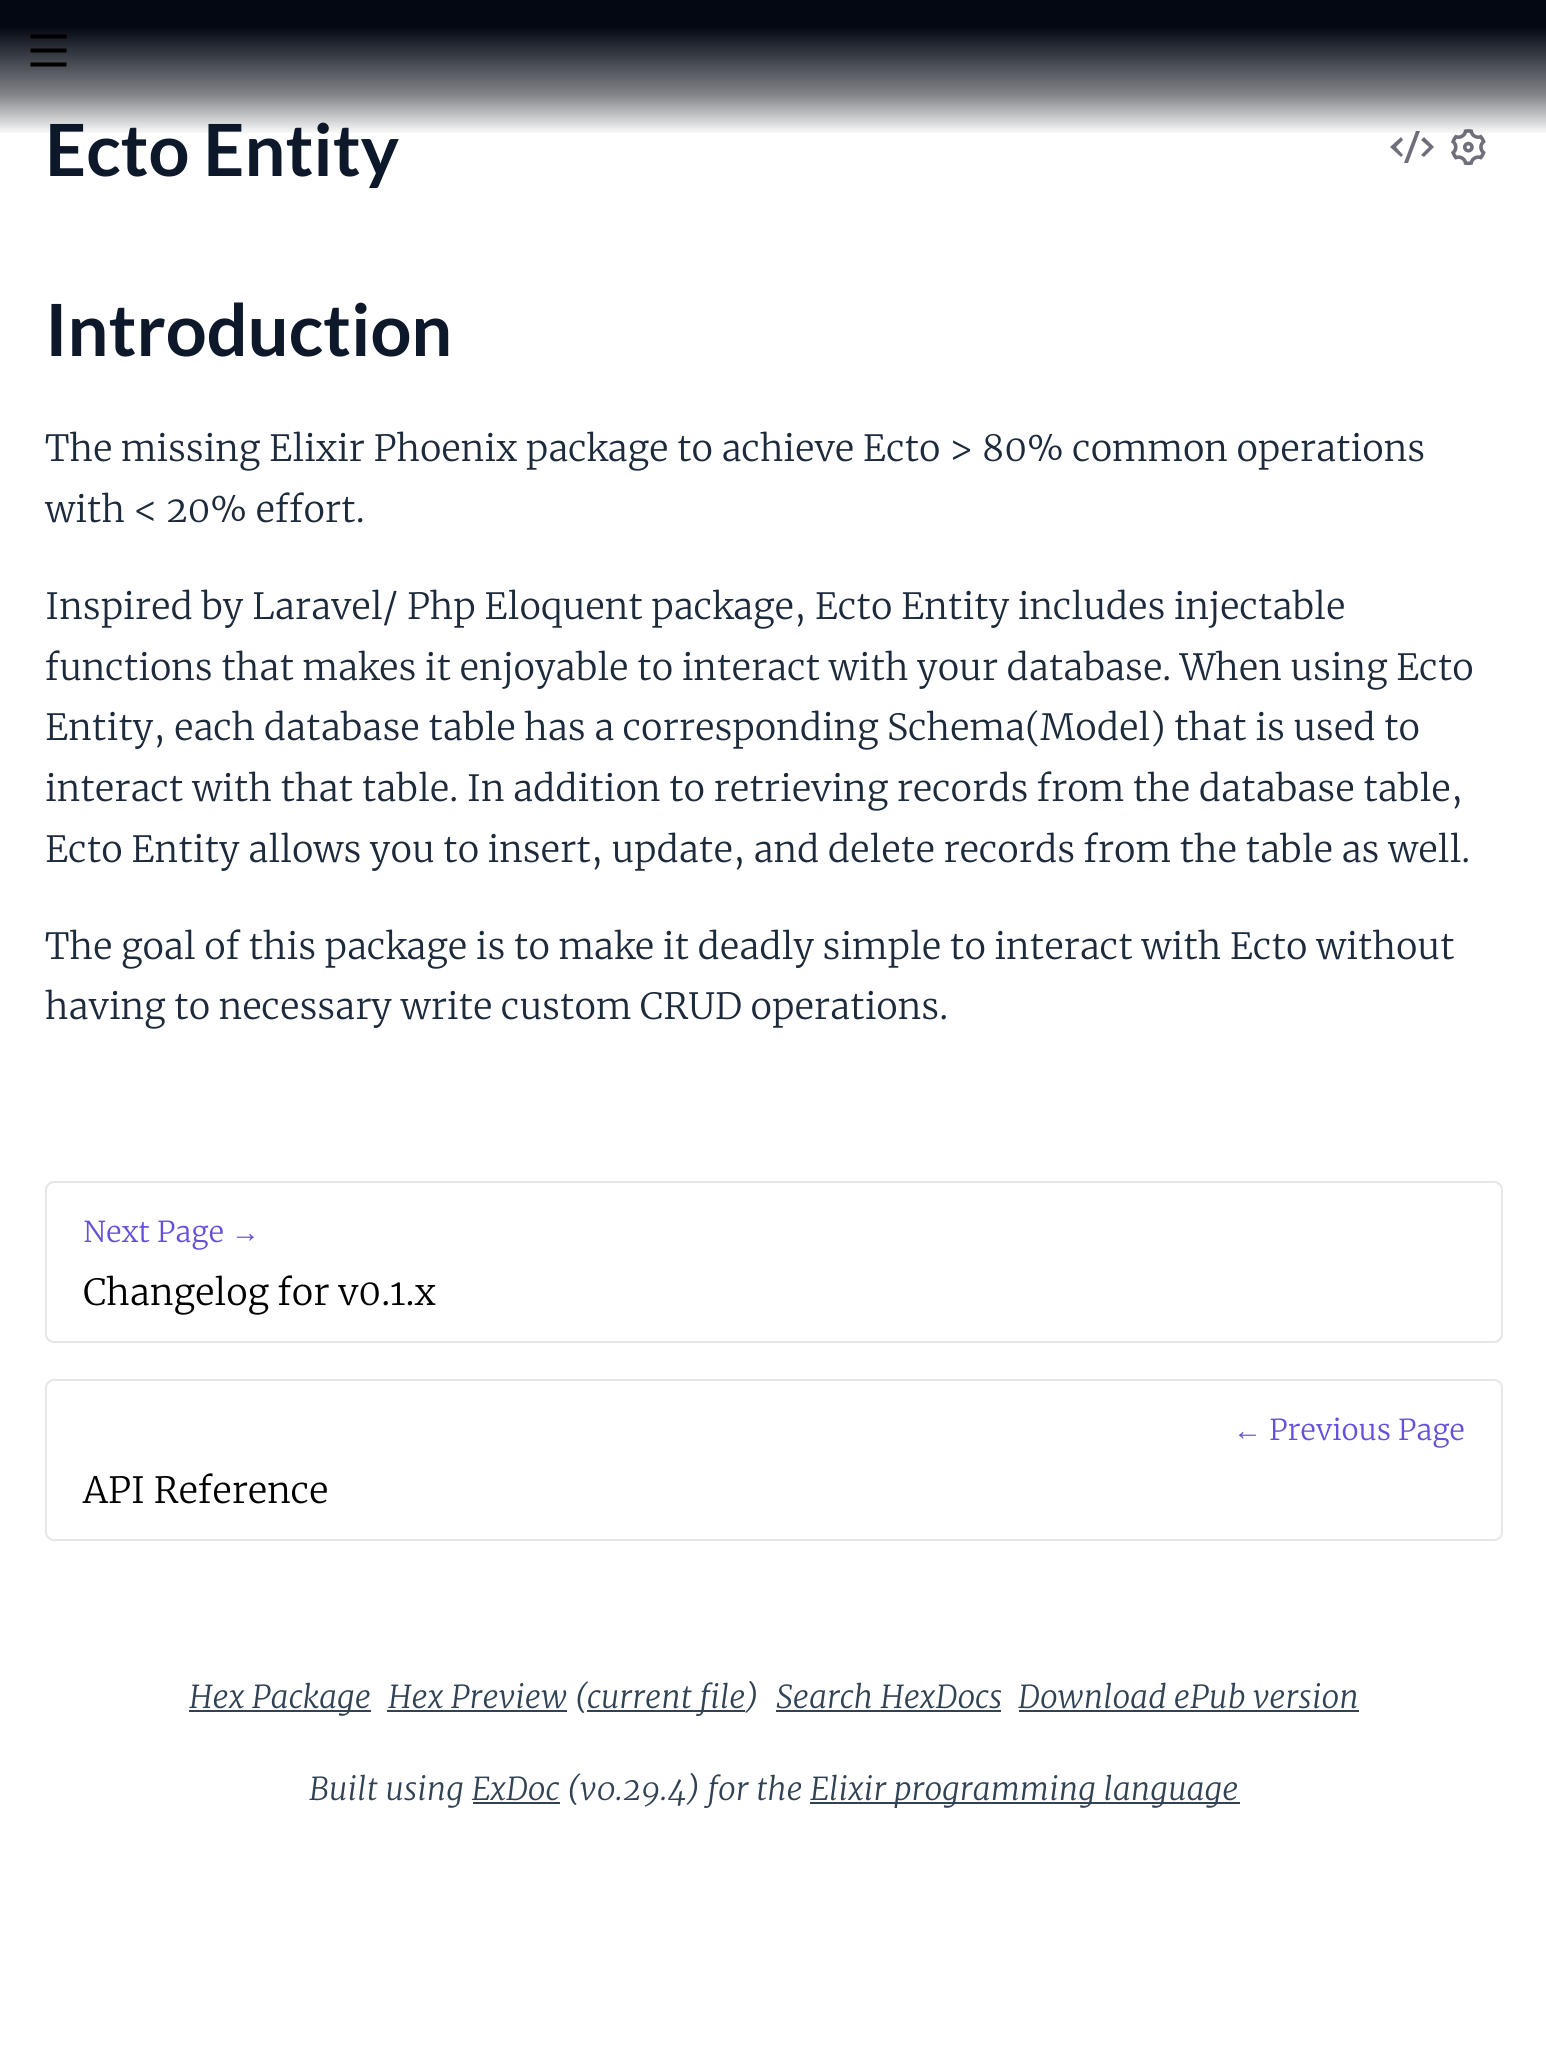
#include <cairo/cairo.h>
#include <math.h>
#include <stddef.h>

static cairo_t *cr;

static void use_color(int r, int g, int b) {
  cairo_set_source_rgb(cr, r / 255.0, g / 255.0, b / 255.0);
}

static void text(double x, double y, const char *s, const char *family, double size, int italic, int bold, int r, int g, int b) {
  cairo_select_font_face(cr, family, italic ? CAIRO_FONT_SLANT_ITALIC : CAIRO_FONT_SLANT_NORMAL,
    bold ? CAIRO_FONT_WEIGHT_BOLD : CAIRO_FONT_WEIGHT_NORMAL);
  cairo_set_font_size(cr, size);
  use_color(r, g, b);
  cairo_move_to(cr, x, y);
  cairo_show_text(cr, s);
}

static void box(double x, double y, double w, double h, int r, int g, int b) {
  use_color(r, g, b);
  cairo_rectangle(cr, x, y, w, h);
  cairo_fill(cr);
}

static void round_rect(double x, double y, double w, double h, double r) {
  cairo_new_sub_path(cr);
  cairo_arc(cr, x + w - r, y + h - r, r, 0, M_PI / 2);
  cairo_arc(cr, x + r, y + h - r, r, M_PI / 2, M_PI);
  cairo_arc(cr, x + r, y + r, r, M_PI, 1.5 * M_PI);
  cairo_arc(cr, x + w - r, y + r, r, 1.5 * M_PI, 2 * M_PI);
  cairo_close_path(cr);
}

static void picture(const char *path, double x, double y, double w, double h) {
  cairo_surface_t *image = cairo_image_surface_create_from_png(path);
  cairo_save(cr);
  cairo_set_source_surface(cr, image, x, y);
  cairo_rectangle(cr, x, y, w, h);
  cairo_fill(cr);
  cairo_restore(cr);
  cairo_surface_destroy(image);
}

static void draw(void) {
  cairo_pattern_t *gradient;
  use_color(255, 255, 255);
  cairo_paint(cr);
  use_color(111, 111, 123);
  cairo_new_path(cr);
  cairo_move_to(cr, 1434, 147);
  cairo_line_to(cr, 1424, 157);
  cairo_line_to(cr, 1421, 155);
  cairo_line_to(cr, 1429, 147);
  cairo_line_to(cr, 1421, 140);
  cairo_line_to(cr, 1424, 137);
  cairo_close_path(cr);
  cairo_move_to(cr, 1396, 147);
  cairo_line_to(cr, 1403, 155);
  cairo_line_to(cr, 1401, 157);
  cairo_line_to(cr, 1390, 147);
  cairo_line_to(cr, 1401, 137);
  cairo_line_to(cr, 1403, 140);
  cairo_close_path(cr);
  cairo_move_to(cr, 1408, 163);
  cairo_line_to(cr, 1404, 163);
  cairo_line_to(cr, 1416, 131);
  cairo_line_to(cr, 1420, 131);
  cairo_close_path(cr);
  cairo_fill(cr);
  picture("img_01.png", 1451, 129, 35, 37);
  round_rect(46, 1182, 1456, 160, 8);
  use_color(230, 230, 230);
  cairo_stroke(cr);
  round_rect(46, 1380, 1456, 160, 8);
  cairo_stroke(cr);
  box(189, 1710, 182, 2, 48, 66, 84);
  box(387, 1710, 180, 2, 48, 66, 84);
  box(587, 1710, 158, 2, 48, 66, 84);
  box(776, 1710, 225, 2, 48, 66, 84);
  box(1019, 1710, 340, 2, 48, 66, 84);
  box(810, 1802, 430, 2, 48, 66, 84);
  box(473, 1802, 87, 2, 48, 66, 84);
  text(45, 176, "Ecto Entity", "Lato", 72, 0, 1, 13, 25, 43);
  gradient = cairo_pattern_create_linear(774, 0, 774, 135);
  cairo_pattern_add_color_stop_rgba(gradient, 0.2, 0.012, 0.031, 0.071, 1);
  cairo_pattern_add_color_stop_rgba(gradient, 0.7, 0.012, 0.031, 0.071, 0.5);
  cairo_pattern_add_color_stop_rgba(gradient, 1, 0.012, 0.031, 0.071, 0);
  cairo_set_source(cr, gradient);
  cairo_pattern_destroy(gradient);
  cairo_rectangle(cr, 0, 0, 1546, 133);
  cairo_fill(cr);
  use_color(0, 0, 0);
  cairo_new_path(cr);
  cairo_move_to(cr, 30.5, 34.5);
  cairo_line_to(cr, 66.5, 34.5);
  cairo_line_to(cr, 66.5, 38.5);
  cairo_line_to(cr, 30.5, 38.5);
  cairo_close_path(cr);
  cairo_move_to(cr, 30.5, 48.5);
  cairo_line_to(cr, 66.5, 48.5);
  cairo_line_to(cr, 66.5, 52.5);
  cairo_line_to(cr, 30.5, 52.5);
  cairo_close_path(cr);
  cairo_move_to(cr, 30.5, 62.5);
  cairo_line_to(cr, 66.5, 62.5);
  cairo_line_to(cr, 66.5, 66.5);
  cairo_line_to(cr, 30.5, 66.5);
  cairo_close_path(cr);
  cairo_fill(cr);
  text(45, 356, "Introduction", "Lato", 72, 0, 1, 13, 25, 43);
  text(45, 461, "The missing Elixir Phoenix package to achieve Ecto > 80% common operations", "Merriweather Light", 36, 0, 0, 28, 42, 59);
  text(45, 522, "with < 20% effort.", "Merriweather Light", 36, 0, 0, 28, 42, 59);
  text(45, 619, "Inspired by Laravel/ Php Eloquent package, Ecto Entity includes injectable", "Merriweather Light", 36, 0, 0, 28, 42, 59);
  text(45, 680, "functions that makes it enjoyable to interact with your database. When using Ecto", "Merriweather Light", 36, 0, 0, 28, 42, 59);
  text(45, 740, "Entity, each database table has a corresponding Schema(Model) that is used to", "Merriweather Light", 36, 0, 0, 28, 42, 59);
  text(45, 801, "interact with that table. In addition to retrieving records from the database table,", "Merriweather Light", 36, 0, 0, 28, 42, 59);
  text(45, 862, "Ecto Entity allows you to insert, update, and delete records from the table as well.", "Merriweather Light", 36, 0, 0, 28, 42, 59);
  text(45, 959, "The goal of this package is to make it deadly simple to interact with Ecto without", "Merriweather Light", 36, 0, 0, 28, 42, 59);
  text(45, 1019, "having to necessary write custom CRUD operations.", "Merriweather Light", 36, 0, 0, 28, 42, 59);
  text(83, 1242, "Next Page", "Merriweather Light", 28.75, 0, 0, 103, 79, 222);
  text(231, 1242, "→", "Liberation Serif", 28.75, 0, 0, 103, 79, 222);
  text(83, 1305, "Changelog for v0.1.x", "Merriweather Light", 36, 0, 0, 0, 0, 0);
  text(1233, 1440, "←", "Liberation Serif", 28.75, 0, 0, 103, 79, 222);
  text(1269, 1440, "Previous Page", "Merriweather Light", 28.75, 0, 0, 103, 79, 222);
  text(83, 1503, "API Reference", "Merriweather Light", 36, 0, 0, 0, 0, 0);
  text(189, 1708, "Hex Package", "Merriweather Light", 31.5, 1, 0, 48, 66, 84);
  text(388, 1708, "Hex Preview (", "Merriweather Light", 31.5, 1, 0, 48, 66, 84);
  text(587, 1708, "current file)", "Merriweather Light", 31.5, 1, 0, 48, 66, 84);
  text(776, 1708, "Search HexDocs", "Merriweather Light", 31.5, 1, 0, 48, 66, 84);
  text(1018, 1708, "Download ePub version", "Merriweather Light", 31.5, 1, 0, 48, 66, 84);
  text(309, 1800, "Built using ExDoc (v0.29.4) for the", "Merriweather Light", 31.5, 1, 0, 48, 66, 84);
  text(810, 1800, "Elixir programming language", "Merriweather Light", 31.5, 1, 0, 48, 66, 84);
}

int main(void) {
  cairo_surface_t *surface = cairo_image_surface_create(CAIRO_FORMAT_RGB24, 1546, 2054);
  cr = cairo_create(surface);
  cairo_font_options_t *options = cairo_font_options_create();
  cairo_font_options_set_hint_metrics(options, CAIRO_HINT_METRICS_OFF);
  cairo_font_options_set_hint_style(options, CAIRO_HINT_STYLE_NONE);
  cairo_set_font_options(cr, options);
  cairo_set_miter_limit(cr, 4);
  draw();
  cairo_surface_write_to_png(surface, "out.png");
  cairo_font_options_destroy(options);
  cairo_destroy(cr);
  cairo_surface_destroy(surface);
  return 0;
}
